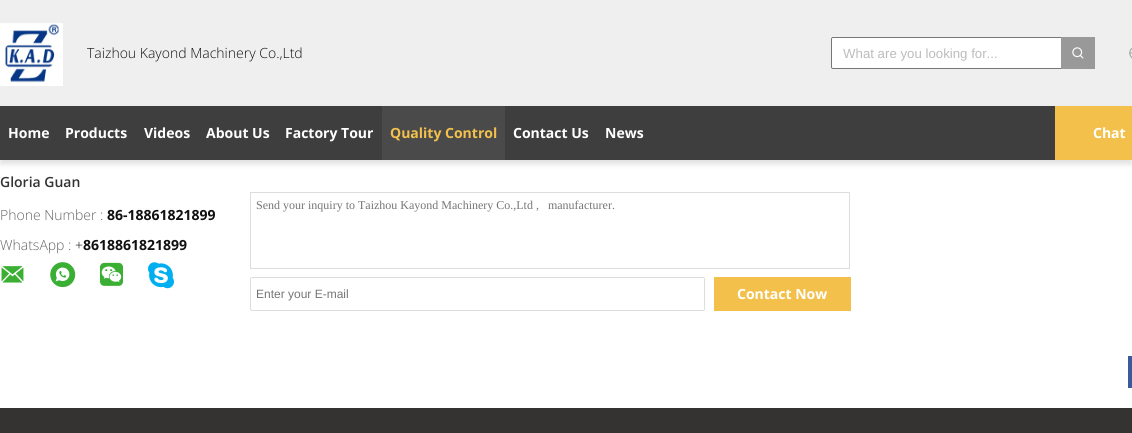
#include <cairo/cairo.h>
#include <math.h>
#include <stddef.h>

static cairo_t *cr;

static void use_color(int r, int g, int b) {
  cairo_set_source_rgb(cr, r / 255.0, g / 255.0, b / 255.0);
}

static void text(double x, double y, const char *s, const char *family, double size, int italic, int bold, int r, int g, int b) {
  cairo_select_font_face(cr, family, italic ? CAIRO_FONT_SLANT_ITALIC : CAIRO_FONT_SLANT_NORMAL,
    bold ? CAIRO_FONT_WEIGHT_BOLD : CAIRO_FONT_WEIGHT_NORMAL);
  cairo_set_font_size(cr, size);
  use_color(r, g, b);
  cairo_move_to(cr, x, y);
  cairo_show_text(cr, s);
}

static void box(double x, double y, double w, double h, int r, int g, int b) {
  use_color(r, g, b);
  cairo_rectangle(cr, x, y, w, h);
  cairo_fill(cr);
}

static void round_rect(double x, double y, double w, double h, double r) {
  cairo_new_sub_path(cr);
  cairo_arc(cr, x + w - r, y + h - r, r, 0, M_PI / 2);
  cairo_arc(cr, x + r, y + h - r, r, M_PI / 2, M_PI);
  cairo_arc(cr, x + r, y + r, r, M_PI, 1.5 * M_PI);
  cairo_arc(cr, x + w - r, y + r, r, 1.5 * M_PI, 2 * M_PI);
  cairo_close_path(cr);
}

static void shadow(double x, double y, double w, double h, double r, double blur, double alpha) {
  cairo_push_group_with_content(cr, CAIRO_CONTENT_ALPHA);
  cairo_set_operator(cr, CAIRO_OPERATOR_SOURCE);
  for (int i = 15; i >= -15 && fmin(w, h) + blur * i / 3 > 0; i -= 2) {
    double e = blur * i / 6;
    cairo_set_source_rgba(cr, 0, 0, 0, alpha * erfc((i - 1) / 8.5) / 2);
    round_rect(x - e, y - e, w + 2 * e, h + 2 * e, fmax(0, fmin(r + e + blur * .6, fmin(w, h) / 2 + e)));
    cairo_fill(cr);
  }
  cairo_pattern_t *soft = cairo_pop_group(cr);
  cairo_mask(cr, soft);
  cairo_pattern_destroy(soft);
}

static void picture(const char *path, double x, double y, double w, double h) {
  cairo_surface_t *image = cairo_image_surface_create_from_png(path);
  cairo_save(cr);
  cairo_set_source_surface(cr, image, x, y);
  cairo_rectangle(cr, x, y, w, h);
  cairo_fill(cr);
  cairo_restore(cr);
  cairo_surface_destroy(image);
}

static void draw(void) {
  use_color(255, 255, 255);
  cairo_paint(cr);
  box(0, 0, 1132, 106, 239, 239, 239);
  picture("img_01.png", 0, 23, 63, 63);
  use_color(255, 255, 255);
  round_rect(831.5, 37.5, 263, 31, 1.5);
  cairo_fill_preserve(cr);
  use_color(118, 118, 118);
  cairo_set_line_width(cr, 1);
  cairo_stroke(cr);
  box(1061, 37, 34, 32, 153, 153, 153);
  picture("img_02.png", 1072, 47, 12, 12);
  picture("img_03.png", 1129, 47, 3, 12);
  use_color(41, 41, 41);
  shadow(0, 110, 1132, 54, 0, 3, 0.15);
  box(0, 106, 1055, 54, 62, 62, 62);
  box(382, 106, 123, 54, 74, 74, 74);
  box(1055, 106, 77, 54, 243, 193, 75);
  picture("img_04.png", 1, 266, 23, 17);
  picture("img_05.png", 50, 262, 26, 26);
  picture("img_06.png", 100, 262, 23, 24);
  picture("img_07.png", 148, 262, 26, 27);
  cairo_rectangle(cr, 250.5, 192.5, 599, 76);
  use_color(221, 221, 221);
  cairo_stroke(cr);
  round_rect(250.5, 277.5, 454, 33, 1.5);
  cairo_stroke(cr);
  box(714, 277, 137, 34, 243, 193, 75);
  box(1128, 356, 4, 32, 59, 90, 153);
  box(0, 408, 1132, 25, 53, 50, 50);
  text(87, 58, "Taizhou Kayond Machinery Co.,Ltd", "Open Sans Light", 14, 0, 0, 17, 17, 17);
  text(843, 58, "What are you looking for...", "Liberation Sans", 13.25, 0, 0, 188, 188, 188);
  text(8, 138, "Home", "Open Sans", 14, 0, 1, 255, 255, 255);
  text(65, 138, "Products", "Open Sans", 14, 0, 1, 255, 255, 255);
  text(144, 138, "Videos", "Open Sans", 14, 0, 1, 255, 255, 255);
  text(206, 138, "About Us", "Open Sans", 14, 0, 1, 255, 255, 255);
  text(285, 138, "Factory Tour", "Open Sans", 14, 0, 1, 255, 255, 255);
  text(390, 138, "Quality Control", "Open Sans", 14, 0, 1, 243, 193, 75);
  text(513, 138, "Contact Us", "Open Sans", 14, 0, 1, 255, 255, 255);
  text(605, 138, "News", "Open Sans", 14, 0, 1, 255, 255, 255);
  text(1093, 138, "Chat", "Open Sans", 14, 0, 1, 255, 255, 255);
  text(0, 187, "Gloria Guan", "Open Sans SemiBold", 14, 0, 0, 51, 51, 51);
  text(0, 220, "Phone Number :", "Open Sans Light", 14, 0, 0, 102, 102, 102);
  text(107, 220, "86-18861821899", "Open Sans", 14, 0, 1, 17, 17, 17);
  text(0, 250, "WhatsApp :", "Open Sans Light", 14, 0, 0, 102, 102, 102);
  text(75, 250, "+", "Open Sans Light", 14, 0, 0, 17, 17, 17);
  text(83, 250, "8618861821899", "Open Sans", 14, 0, 1, 17, 17, 17);
  text(256, 209, "Send your inquiry to Taizhou Kayond Machinery Co.,Ltd ,   manufacturer.", "Liberation Serif", 12, 0, 0, 117, 117, 117);
  text(256, 298, "Enter your E-mail", "Liberation Sans", 12, 0, 0, 117, 117, 117);
  text(737, 299, "Contact Now", "Open Sans", 14, 0, 1, 255, 255, 255);
}

int main(void) {
  cairo_surface_t *surface = cairo_image_surface_create(CAIRO_FORMAT_RGB24, 1132, 433);
  cr = cairo_create(surface);
  cairo_font_options_t *options = cairo_font_options_create();
  cairo_font_options_set_hint_metrics(options, CAIRO_HINT_METRICS_OFF);
  cairo_font_options_set_hint_style(options, CAIRO_HINT_STYLE_NONE);
  cairo_set_font_options(cr, options);
  cairo_set_miter_limit(cr, 4);
  draw();
  cairo_surface_write_to_png(surface, "out.png");
  cairo_font_options_destroy(options);
  cairo_destroy(cr);
  cairo_surface_destroy(surface);
  return 0;
}
